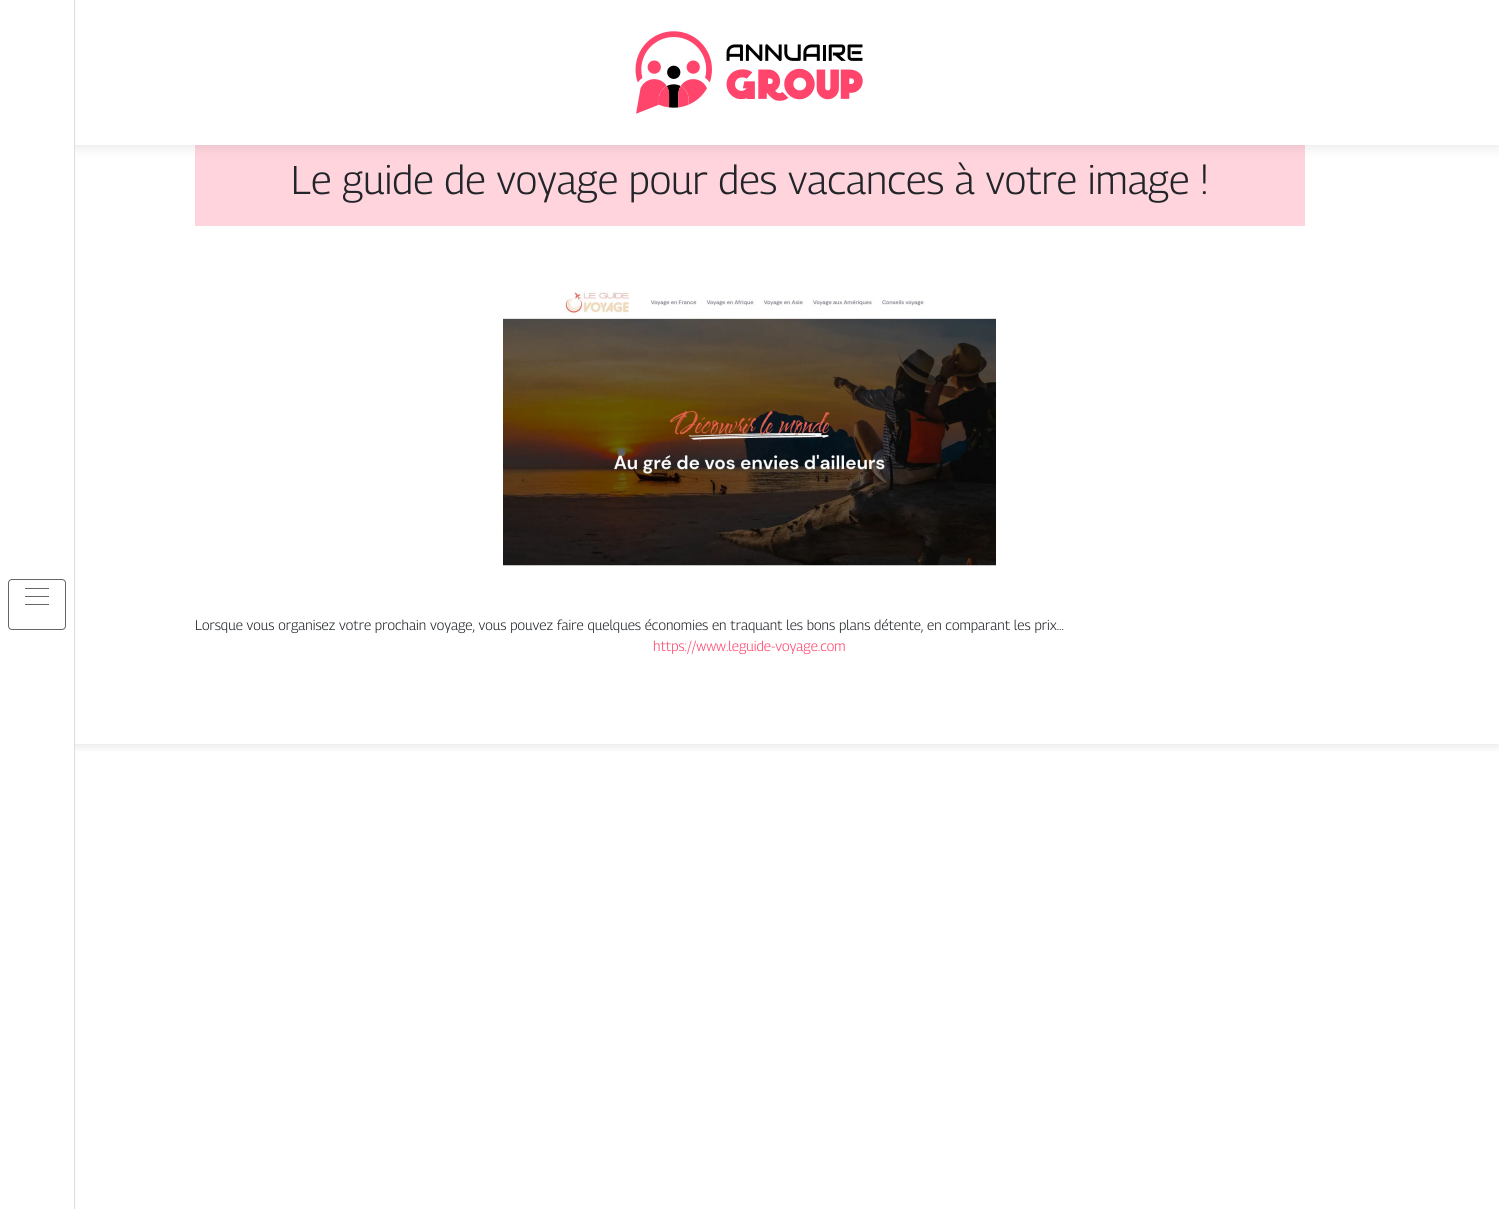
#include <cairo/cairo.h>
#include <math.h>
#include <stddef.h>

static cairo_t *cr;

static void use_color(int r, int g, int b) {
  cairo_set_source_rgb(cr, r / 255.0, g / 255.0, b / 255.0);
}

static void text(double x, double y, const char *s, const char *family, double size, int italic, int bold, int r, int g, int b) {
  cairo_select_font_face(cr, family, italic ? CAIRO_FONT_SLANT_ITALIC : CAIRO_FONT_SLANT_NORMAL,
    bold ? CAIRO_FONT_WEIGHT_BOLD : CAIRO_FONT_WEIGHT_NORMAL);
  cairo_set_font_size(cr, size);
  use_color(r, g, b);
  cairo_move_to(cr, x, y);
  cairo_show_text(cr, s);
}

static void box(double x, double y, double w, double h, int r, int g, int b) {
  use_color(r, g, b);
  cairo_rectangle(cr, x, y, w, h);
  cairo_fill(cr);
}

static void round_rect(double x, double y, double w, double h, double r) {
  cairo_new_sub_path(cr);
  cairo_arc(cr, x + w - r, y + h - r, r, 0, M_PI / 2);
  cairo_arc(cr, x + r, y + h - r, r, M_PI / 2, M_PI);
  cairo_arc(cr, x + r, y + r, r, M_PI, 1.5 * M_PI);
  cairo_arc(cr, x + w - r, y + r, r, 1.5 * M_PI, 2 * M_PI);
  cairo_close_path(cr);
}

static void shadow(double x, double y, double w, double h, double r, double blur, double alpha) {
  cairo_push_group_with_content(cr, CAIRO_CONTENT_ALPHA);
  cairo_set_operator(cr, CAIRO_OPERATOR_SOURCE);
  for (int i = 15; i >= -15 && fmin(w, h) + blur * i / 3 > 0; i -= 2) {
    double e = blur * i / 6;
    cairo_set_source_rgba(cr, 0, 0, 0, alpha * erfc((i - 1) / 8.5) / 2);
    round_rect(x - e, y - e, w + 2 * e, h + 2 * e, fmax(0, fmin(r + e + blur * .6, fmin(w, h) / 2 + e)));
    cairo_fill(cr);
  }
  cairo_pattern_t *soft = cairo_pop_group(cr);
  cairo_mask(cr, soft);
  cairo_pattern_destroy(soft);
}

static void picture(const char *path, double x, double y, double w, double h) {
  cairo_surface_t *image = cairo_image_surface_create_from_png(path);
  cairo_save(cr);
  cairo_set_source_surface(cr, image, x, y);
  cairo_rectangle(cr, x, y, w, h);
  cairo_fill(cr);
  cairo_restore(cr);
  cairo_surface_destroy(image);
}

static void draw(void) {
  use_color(255, 255, 255);
  cairo_paint(cr);
  cairo_save(cr);
  cairo_rectangle(cr, 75, 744, 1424, 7);
  cairo_clip(cr);
  use_color(0, 0, 0);
  shadow(0, 122, 1499, 624, 0, 6.5, 0.1);
  cairo_restore(cr);
  box(195, 145, 1110, 81, 255, 212, 221);
  use_color(0, 0, 0);
  shadow(0, 2, 1499, 145, 0, 6.5, 0.1);
  box(75, 0, 1424, 145, 255, 255, 255);
  box(0, 0, 74, 754, 255, 255, 255);
  box(74, 0, 1, 1209, 221, 221, 221);
  round_rect(8.5, 579.5, 57, 50, 3.5);
  use_color(102, 102, 102);
  cairo_set_line_width(cr, 1);
  cairo_stroke(cr);
  box(25, 588, 24, 1, 102, 102, 102);
  box(25, 596, 24, 1, 102, 102, 102);
  box(25, 604, 24, 1, 102, 102, 102);
  picture("img_01.png", 635, 31, 228, 83);
  picture("img_02.png", 503, 291, 493, 275);
  text(291, 194, "Le guide de voyage pour des vacances à votre image !", "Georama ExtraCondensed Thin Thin", 40, 0, 0, 33, 37, 41);
  text(195, 630, "Lorsque vous organisez votre prochain voyage, vous pouvez faire quelques économies en traquant les bons plans détente, en comparant les prix...", "Georama ExtraCondensed Thin Thin", 14, 0, 0, 33, 37, 41);
  text(653, 651, "https://www.leguide-voyage.com", "Georama ExtraCondensed Thin Thin", 14, 0, 0, 255, 69, 107);
}

int main(void) {
  cairo_surface_t *surface = cairo_image_surface_create(CAIRO_FORMAT_RGB24, 1499, 1209);
  cr = cairo_create(surface);
  cairo_font_options_t *options = cairo_font_options_create();
  cairo_font_options_set_hint_metrics(options, CAIRO_HINT_METRICS_OFF);
  cairo_font_options_set_hint_style(options, CAIRO_HINT_STYLE_NONE);
  cairo_set_font_options(cr, options);
  cairo_set_miter_limit(cr, 4);
  draw();
  cairo_surface_write_to_png(surface, "out.png");
  cairo_font_options_destroy(options);
  cairo_destroy(cr);
  cairo_surface_destroy(surface);
  return 0;
}
